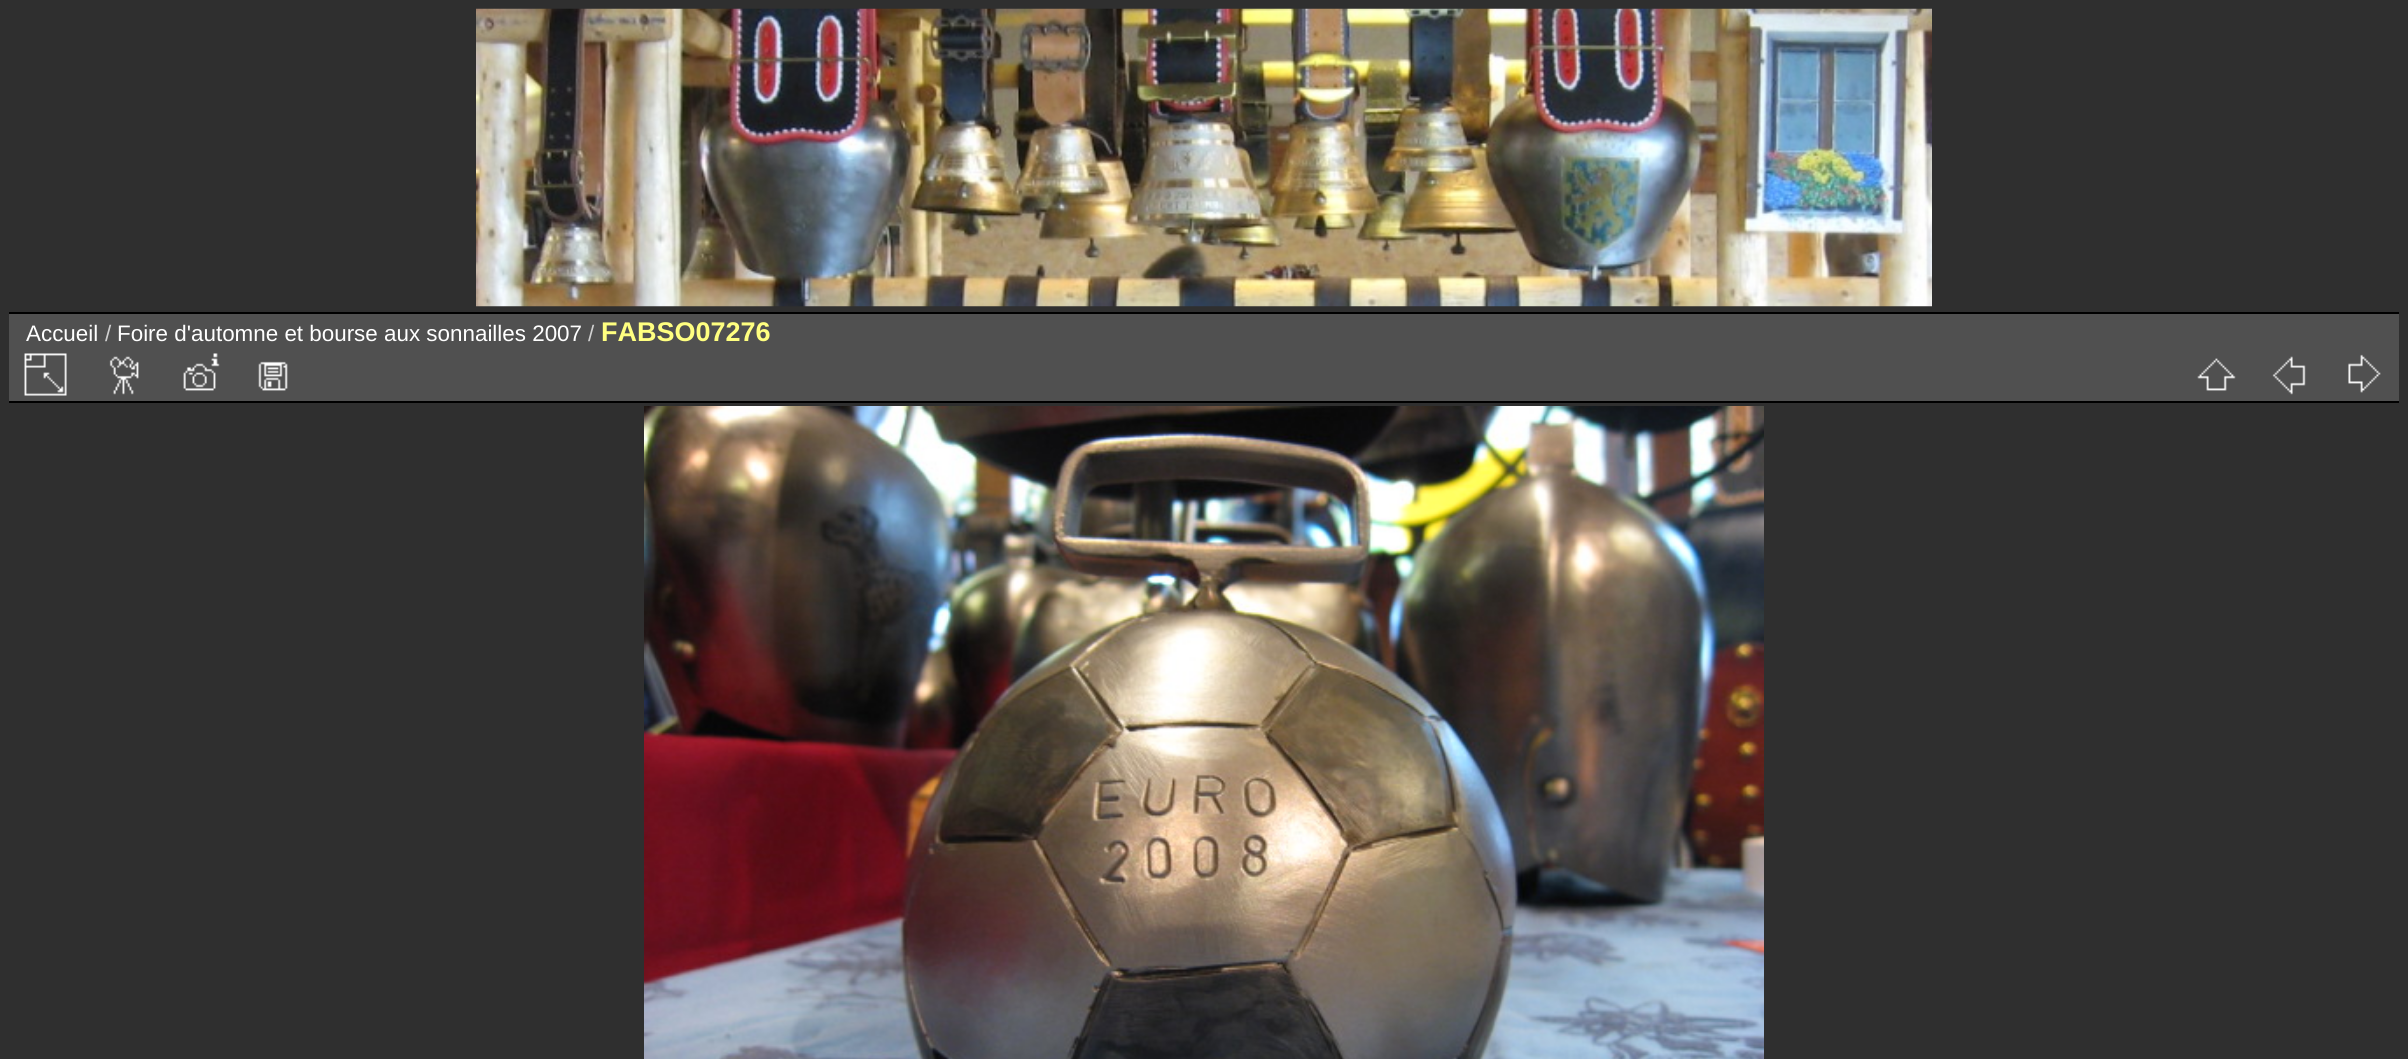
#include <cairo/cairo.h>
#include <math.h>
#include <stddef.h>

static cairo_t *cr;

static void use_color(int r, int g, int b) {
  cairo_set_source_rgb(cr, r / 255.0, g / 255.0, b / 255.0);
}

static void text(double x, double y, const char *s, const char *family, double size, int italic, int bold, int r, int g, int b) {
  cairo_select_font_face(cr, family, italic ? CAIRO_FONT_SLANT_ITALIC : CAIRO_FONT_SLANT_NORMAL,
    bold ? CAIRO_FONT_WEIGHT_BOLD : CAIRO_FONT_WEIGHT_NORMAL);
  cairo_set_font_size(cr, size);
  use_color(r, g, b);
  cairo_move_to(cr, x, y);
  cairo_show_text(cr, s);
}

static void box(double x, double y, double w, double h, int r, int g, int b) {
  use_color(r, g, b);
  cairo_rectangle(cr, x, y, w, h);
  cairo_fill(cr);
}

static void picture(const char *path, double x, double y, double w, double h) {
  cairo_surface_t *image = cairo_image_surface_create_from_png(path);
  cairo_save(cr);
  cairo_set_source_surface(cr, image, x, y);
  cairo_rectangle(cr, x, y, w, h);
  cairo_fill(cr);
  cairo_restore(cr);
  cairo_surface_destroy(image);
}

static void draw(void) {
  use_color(47, 47, 47);
  cairo_paint(cr);
  picture("img_01.png", 476, 8, 1456, 299);
  box(9, 314, 2390, 87, 80, 80, 80);
  box(9, 401, 2390, 2, 0, 0, 0);
  picture("img_02.png", 24, 353, 43, 43);
  picture("img_03.png", 109, 356, 30, 39);
  picture("img_04.png", 183, 353, 37, 38);
  picture("img_05.png", 258, 361, 30, 30);
  picture("img_06.png", 2197, 358, 39, 33);
  picture("img_07.png", 2272, 356, 34, 39);
  picture("img_08.png", 2348, 354, 33, 39);
  box(9, 312, 2390, 2, 0, 0, 0);
  picture("img_09.png", 644, 406, 1120, 653);
  text(26, 341, "Accueil", "Liberation Sans", 22.4, 0, 0, 255, 255, 255);
  text(105, 341, "/", "Liberation Sans", 22.4, 0, 0, 208, 208, 208);
  text(117, 341, "Foire d'automne et bourse aux sonnailles 2007", "Liberation Sans", 22.4, 0, 0, 255, 255, 255);
  text(588, 341, "/", "Liberation Sans", 22.4, 0, 0, 208, 208, 208);
  text(601, 341, "FABSO07276", "Liberation Sans", 27, 0, 1, 255, 255, 128);
}

int main(void) {
  cairo_surface_t *surface = cairo_image_surface_create(CAIRO_FORMAT_RGB24, 2408, 1059);
  cr = cairo_create(surface);
  cairo_font_options_t *options = cairo_font_options_create();
  cairo_font_options_set_hint_metrics(options, CAIRO_HINT_METRICS_OFF);
  cairo_font_options_set_hint_style(options, CAIRO_HINT_STYLE_NONE);
  cairo_set_font_options(cr, options);
  cairo_set_miter_limit(cr, 4);
  draw();
  cairo_surface_write_to_png(surface, "out.png");
  cairo_font_options_destroy(options);
  cairo_destroy(cr);
  cairo_surface_destroy(surface);
  return 0;
}
